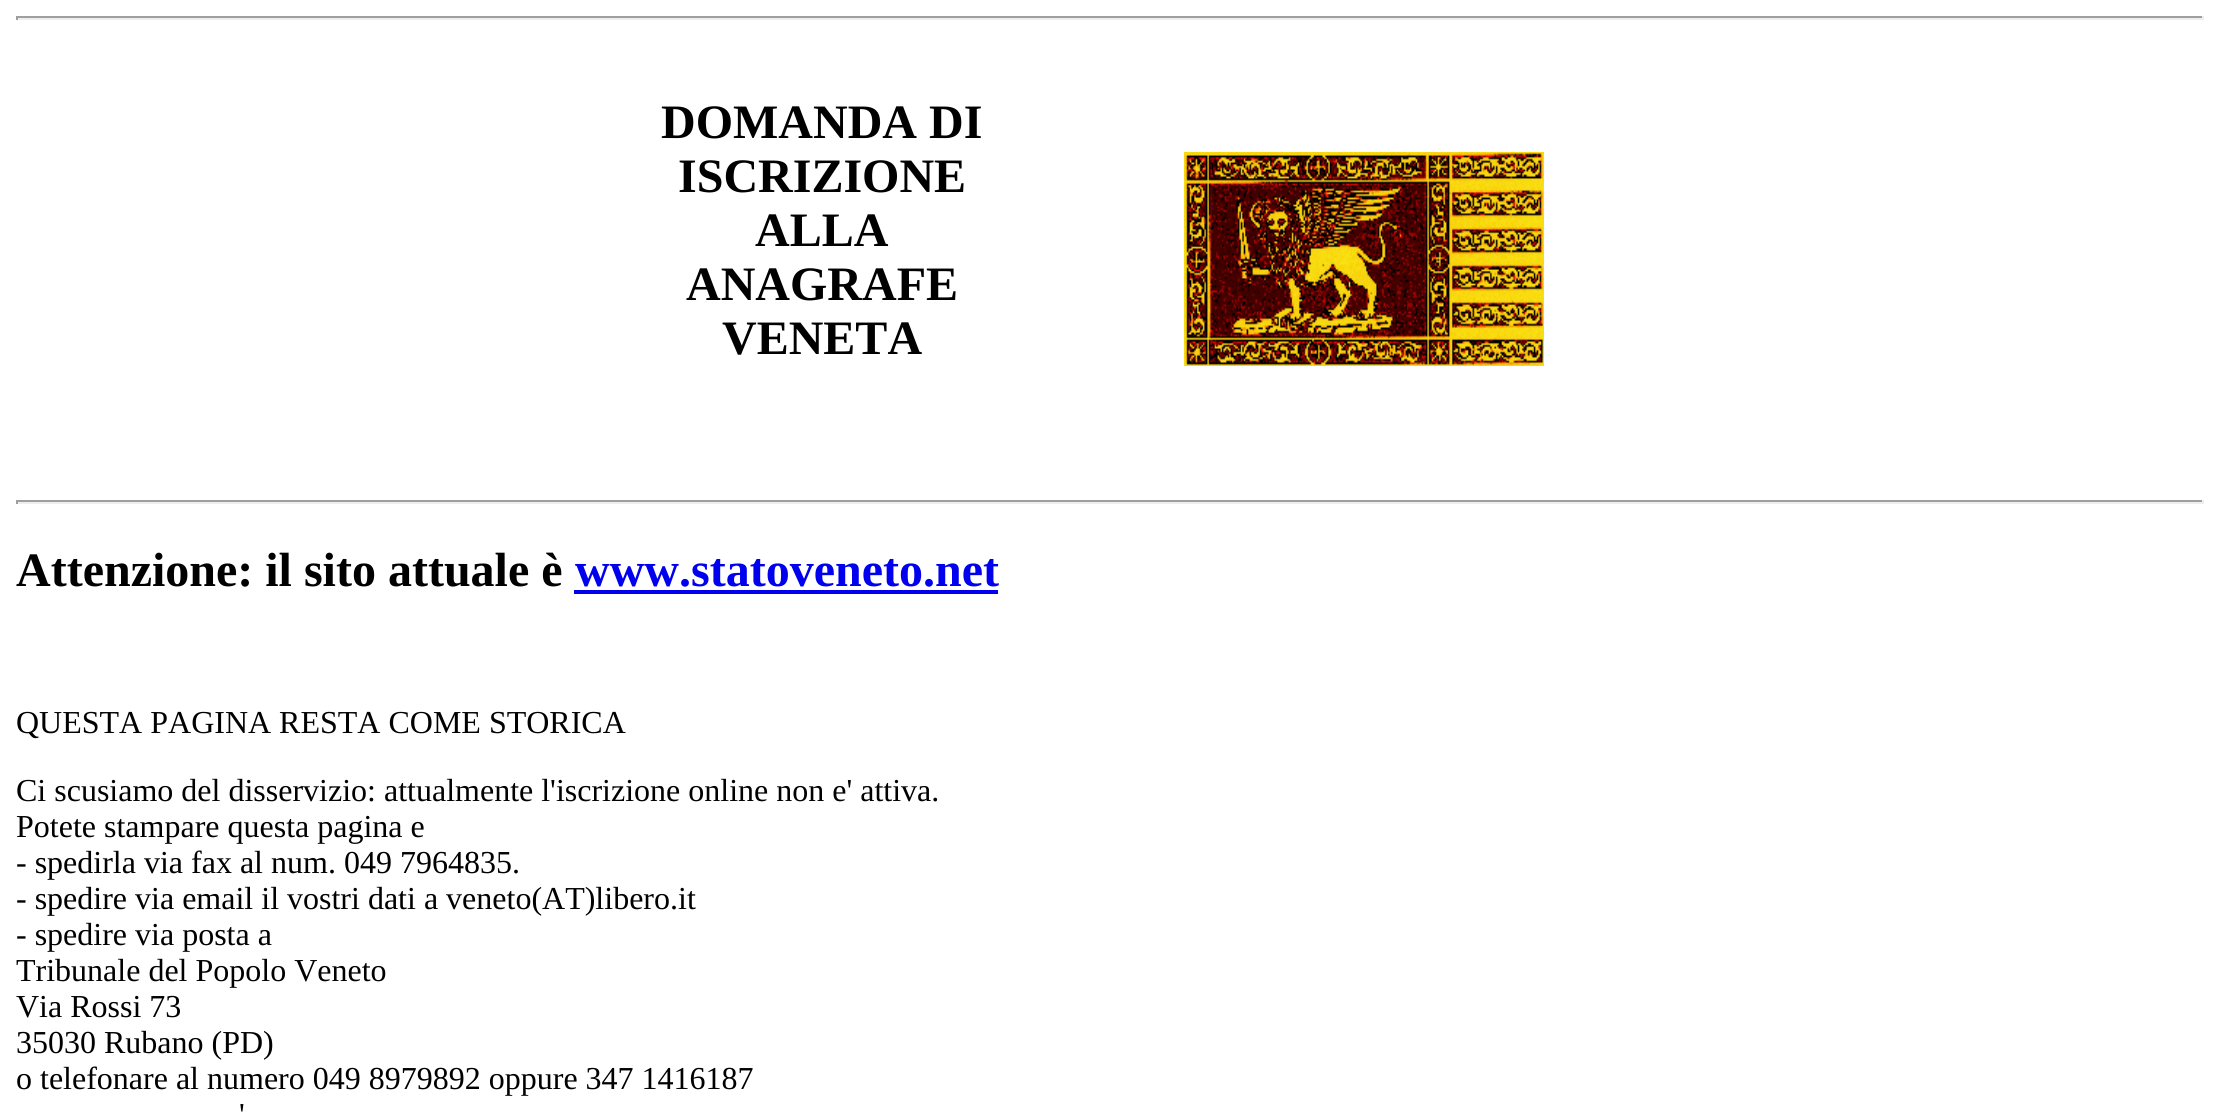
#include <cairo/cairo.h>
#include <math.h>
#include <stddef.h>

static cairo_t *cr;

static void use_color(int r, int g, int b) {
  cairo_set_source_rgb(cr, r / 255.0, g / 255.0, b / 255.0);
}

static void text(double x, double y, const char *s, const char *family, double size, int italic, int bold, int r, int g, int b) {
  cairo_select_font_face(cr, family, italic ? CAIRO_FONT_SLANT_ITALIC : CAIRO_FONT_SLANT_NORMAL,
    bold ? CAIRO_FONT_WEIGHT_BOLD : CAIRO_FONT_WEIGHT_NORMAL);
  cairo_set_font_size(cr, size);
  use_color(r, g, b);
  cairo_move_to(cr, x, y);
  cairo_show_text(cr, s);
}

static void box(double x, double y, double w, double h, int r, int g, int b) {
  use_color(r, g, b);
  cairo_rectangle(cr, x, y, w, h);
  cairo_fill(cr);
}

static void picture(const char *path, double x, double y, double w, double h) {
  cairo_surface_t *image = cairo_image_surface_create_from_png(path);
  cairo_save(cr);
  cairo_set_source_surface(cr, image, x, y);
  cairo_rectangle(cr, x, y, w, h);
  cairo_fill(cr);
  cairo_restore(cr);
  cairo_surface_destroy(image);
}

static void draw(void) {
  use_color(255, 255, 255);
  cairo_paint(cr);
  box(16, 16, 2188, 2, 159, 159, 159);
  box(2202, 16, 2, 4, 238, 238, 238);
  box(16, 18, 2188, 2, 238, 238, 238);
  box(16, 16, 2, 4, 159, 159, 159);
  picture("img_01.png", 1184, 152, 360, 214);
  box(16, 500, 2188, 2, 159, 159, 159);
  box(2202, 500, 2, 4, 238, 238, 238);
  box(16, 502, 2188, 2, 238, 238, 238);
  box(16, 500, 2, 4, 159, 159, 159);
  box(574, 590, 424, 4, 0, 0, 238);
  text(661, 138, "DOMANDA DI", "Liberation Serif", 48, 0, 1, 0, 0, 0);
  text(678, 192, "ISCRIZIONE", "Liberation Serif", 48, 0, 1, 0, 0, 0);
  text(755, 246, "ALLA", "Liberation Serif", 48, 0, 1, 0, 0, 0);
  text(686, 300, "ANAGRAFE", "Liberation Serif", 48, 0, 1, 0, 0, 0);
  text(722, 354, "VENETA", "Liberation Serif", 48, 0, 1, 0, 0, 0);
  text(16, 586, "Attenzione: il sito attuale è", "Liberation Serif", 48, 0, 1, 0, 0, 0);
  text(575, 586, "www.statoveneto.net", "Liberation Serif", 48, 0, 1, 0, 0, 238);
  text(16, 733, "QUESTA PAGINA RESTA COME STORICA", "Liberation Serif", 32, 0, 0, 0, 0, 0);
  text(16, 801, "Ci scusiamo del disservizio: attualmente l'iscrizione online non e' attiva.", "Liberation Serif", 32, 0, 0, 0, 0, 0);
  text(16, 837, "Potete stampare questa pagina e", "Liberation Serif", 32, 0, 0, 0, 0, 0);
  text(16, 873, "- spedirla via fax al num. 049 7964835.", "Liberation Serif", 32, 0, 0, 0, 0, 0);
  text(16, 909, "- spedire via email il vostri dati a veneto(AT)libero.it", "Liberation Serif", 32, 0, 0, 0, 0, 0);
  text(16, 945, "- spedire via posta a", "Liberation Serif", 32, 0, 0, 0, 0, 0);
  text(16, 981, "Tribunale del Popolo Veneto", "Liberation Serif", 32, 0, 0, 0, 0, 0);
  text(16, 1017, "Via Rossi 73", "Liberation Serif", 32, 0, 0, 0, 0, 0);
  text(16, 1053, "35030 Rubano (PD)", "Liberation Serif", 32, 0, 0, 0, 0, 0);
  text(16, 1089, "o telefonare al numero 049 8979892 oppure 347 1416187", "Liberation Serif", 32, 0, 0, 0, 0, 0);
  text(239, 1125, "'", "Liberation Serif", 32, 0, 0, 0, 0, 0);
}

int main(void) {
  cairo_surface_t *surface = cairo_image_surface_create(CAIRO_FORMAT_RGB24, 2220, 1114);
  cr = cairo_create(surface);
  cairo_font_options_t *options = cairo_font_options_create();
  cairo_font_options_set_hint_metrics(options, CAIRO_HINT_METRICS_OFF);
  cairo_font_options_set_hint_style(options, CAIRO_HINT_STYLE_NONE);
  cairo_set_font_options(cr, options);
  cairo_set_miter_limit(cr, 4);
  draw();
  cairo_surface_write_to_png(surface, "out.png");
  cairo_font_options_destroy(options);
  cairo_destroy(cr);
  cairo_surface_destroy(surface);
  return 0;
}
